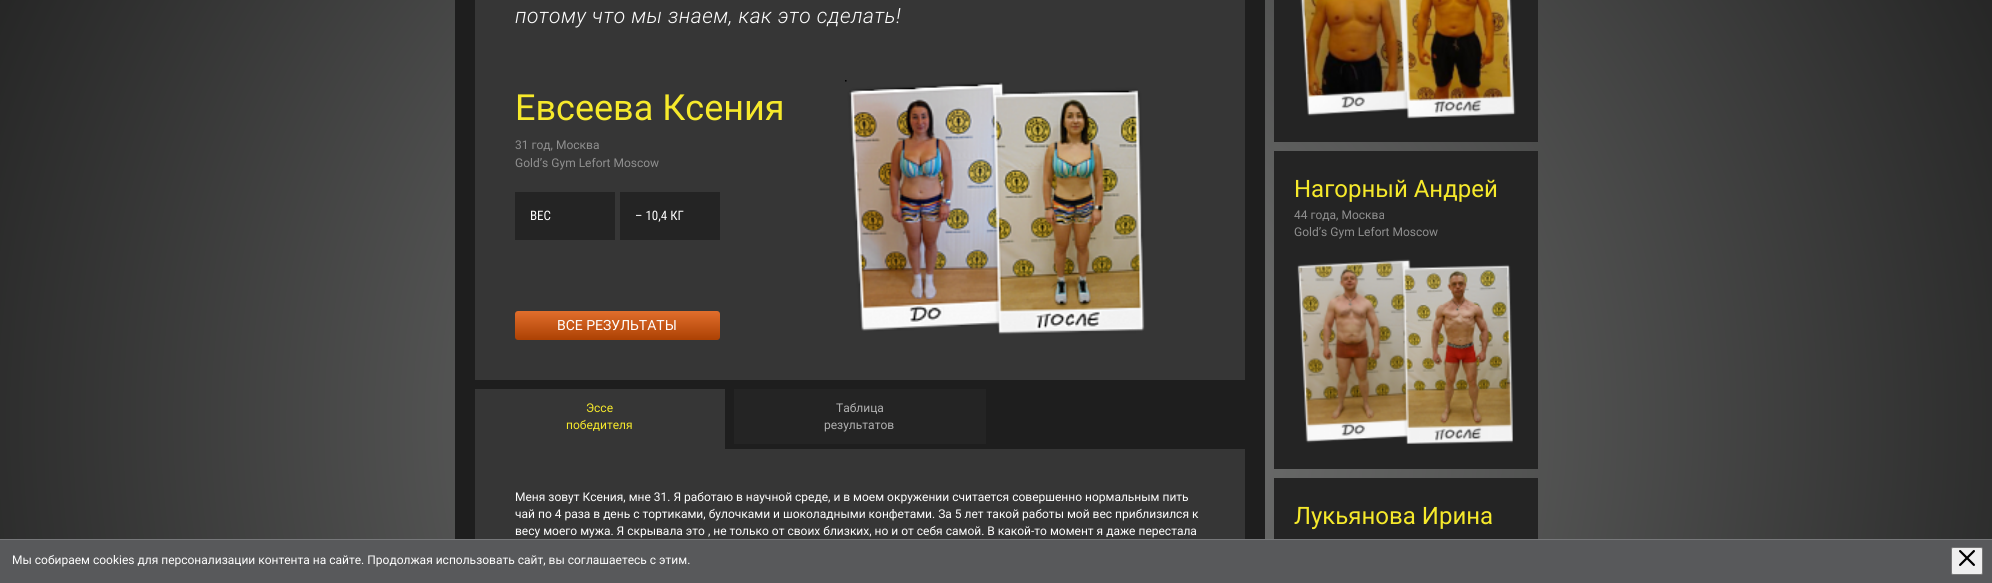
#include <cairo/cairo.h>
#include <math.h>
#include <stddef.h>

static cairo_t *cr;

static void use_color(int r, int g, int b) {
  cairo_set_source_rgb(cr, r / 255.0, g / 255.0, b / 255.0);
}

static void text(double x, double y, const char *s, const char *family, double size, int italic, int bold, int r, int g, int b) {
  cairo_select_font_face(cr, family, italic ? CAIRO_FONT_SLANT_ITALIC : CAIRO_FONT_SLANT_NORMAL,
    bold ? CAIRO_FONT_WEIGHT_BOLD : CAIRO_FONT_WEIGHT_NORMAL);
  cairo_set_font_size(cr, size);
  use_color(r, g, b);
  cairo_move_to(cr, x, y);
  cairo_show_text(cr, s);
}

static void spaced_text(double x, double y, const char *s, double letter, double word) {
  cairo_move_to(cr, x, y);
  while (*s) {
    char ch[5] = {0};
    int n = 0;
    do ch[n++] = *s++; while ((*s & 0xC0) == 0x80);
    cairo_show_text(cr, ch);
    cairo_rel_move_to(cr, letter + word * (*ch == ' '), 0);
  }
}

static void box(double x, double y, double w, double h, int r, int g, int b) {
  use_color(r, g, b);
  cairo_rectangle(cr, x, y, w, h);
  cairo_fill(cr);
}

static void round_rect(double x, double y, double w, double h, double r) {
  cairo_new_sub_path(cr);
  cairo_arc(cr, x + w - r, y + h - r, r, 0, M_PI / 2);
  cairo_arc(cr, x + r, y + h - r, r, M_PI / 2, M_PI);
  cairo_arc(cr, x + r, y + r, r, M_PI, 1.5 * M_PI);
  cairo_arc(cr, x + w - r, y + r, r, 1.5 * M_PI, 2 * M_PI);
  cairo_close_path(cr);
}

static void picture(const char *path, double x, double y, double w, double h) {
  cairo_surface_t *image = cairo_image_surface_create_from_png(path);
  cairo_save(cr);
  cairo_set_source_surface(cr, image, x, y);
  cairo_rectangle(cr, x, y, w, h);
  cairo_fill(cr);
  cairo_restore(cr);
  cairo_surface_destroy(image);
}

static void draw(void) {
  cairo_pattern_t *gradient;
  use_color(255, 255, 255);
  cairo_paint(cr);
  gradient = cairo_pattern_create_radial(0, 0, 0, 0, 0, 1);
  cairo_pattern_set_matrix(gradient, &(cairo_matrix_t){1.0 / 1409, 0, 0, 1.0 / 1324, -1.0 * 996 / 1409, -1.0 * 420 / 1324});
  cairo_pattern_add_color_stop_rgba(gradient, 0, 0.49, 0.494, 0.49, 1);
  cairo_pattern_add_color_stop_rgba(gradient, 1, 0.055, 0.055, 0.055, 1);
  cairo_set_source(cr, gradient);
  cairo_pattern_destroy(gradient);
  cairo_rectangle(cr, 0, 0, 1992, 539);
  cairo_fill(cr);
  box(455, 0, 810, 539, 30, 30, 30);
  box(475, 0, 770, 380, 54, 54, 54);
  box(515, 192, 100, 48, 36, 36, 36);
  box(620, 192, 100, 48, 36, 36, 36);
  gradient = cairo_pattern_create_linear(618, 311, 618, 340);
  cairo_pattern_add_color_stop_rgba(gradient, 0, 0.882, 0.431, 0.173, 1);
  cairo_pattern_add_color_stop_rgba(gradient, 1, 0.675, 0.255, 0.012, 1);
  cairo_set_source(cr, gradient);
  cairo_pattern_destroy(gradient);
  round_rect(515, 311, 205, 29, 3);
  cairo_fill(cr);
  picture("img_01.png", 845, 80, 300, 255);
  box(475, 389, 250, 60, 54, 54, 54);
  box(734, 389, 252, 55, 36, 36, 36);
  box(475, 449, 770, 90, 54, 54, 54);
  box(1274, 0, 264, 142, 36, 36, 36);
  picture("img_02.png", 1300, 0, 216, 119);
  box(1274, 151, 264, 318, 36, 36, 36);
  picture("img_03.png", 1297, 259, 216, 185);
  box(1274, 478, 264, 61, 36, 36, 36);
  box(0, 540, 1992, 43, 88, 89, 91);
  box(0, 539, 1992, 1, 118, 119, 121);
  use_color(239, 239, 239);
  round_rect(1951.5, 547.5, 31, 27, 1.5);
  cairo_fill_preserve(cr);
  use_color(118, 118, 118);
  cairo_set_line_width(cr, 1);
  cairo_stroke(cr);
  picture("img_04.png", 1959, 550, 16, 16);
  cairo_select_font_face(cr, "Roboto Light", CAIRO_FONT_SLANT_ITALIC, CAIRO_FONT_WEIGHT_NORMAL);
  cairo_set_font_size(cr, 21);
  use_color(254, 254, 254);
  spaced_text(515, 23, "потому что мы знаем, как это сделать!", 0.5, 0);
  text(515, 120, "Евсеева Ксения", "Roboto", 36, 0, 0, 246, 233, 43);
  text(515, 149, "31 год, Москва", "Roboto", 12, 0, 0, 143, 143, 143);
  text(515, 167, "Gold’s Gym Lefort Moscow", "Roboto", 12, 0, 0, 143, 143, 143);
  text(530, 220, "ВЕС", "Roboto Condensed", 13, 0, 0, 254, 254, 254);
  text(635, 220, "– 10,4 КГ", "Roboto Condensed", 13, 0, 0, 254, 254, 254);
  text(557, 330, "ВСЕ РЕЗУЛЬТАТЫ", "Roboto", 14, 0, 0, 254, 254, 254);
  text(586, 412, "Эссе", "Roboto", 12, 0, 0, 246, 233, 43);
  text(566, 429, "победителя", "Roboto", 12, 0, 0, 246, 233, 43);
  text(836, 412, "Таблица", "Roboto", 12, 0, 0, 176, 176, 176);
  text(824, 429, "результатов", "Roboto", 12, 0, 0, 176, 176, 176);
  text(515, 501, "Меня зовут Ксения, мне 31. Я работаю в научной среде, и в моем окружении считается совершенно нормальным пить", "Roboto", 12, 0, 0, 254, 254, 254);
  text(515, 518, "чай по 4 раза в день с тортиками, булочками и шоколадными конфетами. За 5 лет такой работы мой вес приблизился к", "Roboto", 12, 0, 0, 254, 254, 254);
  text(515, 535, "весу моего мужа. Я скрывала это , не только от своих близких, но и от себя самой. В какой-то момент я даже перестала", "Roboto", 12, 0, 0, 254, 254, 254);
  text(1294, 197, "Нагорный Андрей", "Roboto", 24, 0, 0, 246, 233, 43);
  text(1294, 219, "44 года, Москва", "Roboto", 12, 0, 0, 143, 143, 143);
  text(1294, 236, "Gold’s Gym Lefort Moscow", "Roboto", 12, 0, 0, 143, 143, 143);
  text(1294, 524, "Лукьянова Ирина", "Roboto", 24, 0, 0, 246, 233, 43);
  text(12, 564, "Мы собираем cookies для персонализации контента на сайте. Продолжая использовать сайт, вы соглашаетесь с этим.", "Roboto", 12, 0, 0, 254, 254, 254);
}

int main(void) {
  cairo_surface_t *surface = cairo_image_surface_create(CAIRO_FORMAT_RGB24, 1992, 583);
  cr = cairo_create(surface);
  cairo_font_options_t *options = cairo_font_options_create();
  cairo_font_options_set_hint_metrics(options, CAIRO_HINT_METRICS_OFF);
  cairo_font_options_set_hint_style(options, CAIRO_HINT_STYLE_NONE);
  cairo_set_font_options(cr, options);
  cairo_set_miter_limit(cr, 4);
  draw();
  cairo_surface_write_to_png(surface, "out.png");
  cairo_font_options_destroy(options);
  cairo_destroy(cr);
  cairo_surface_destroy(surface);
  return 0;
}
